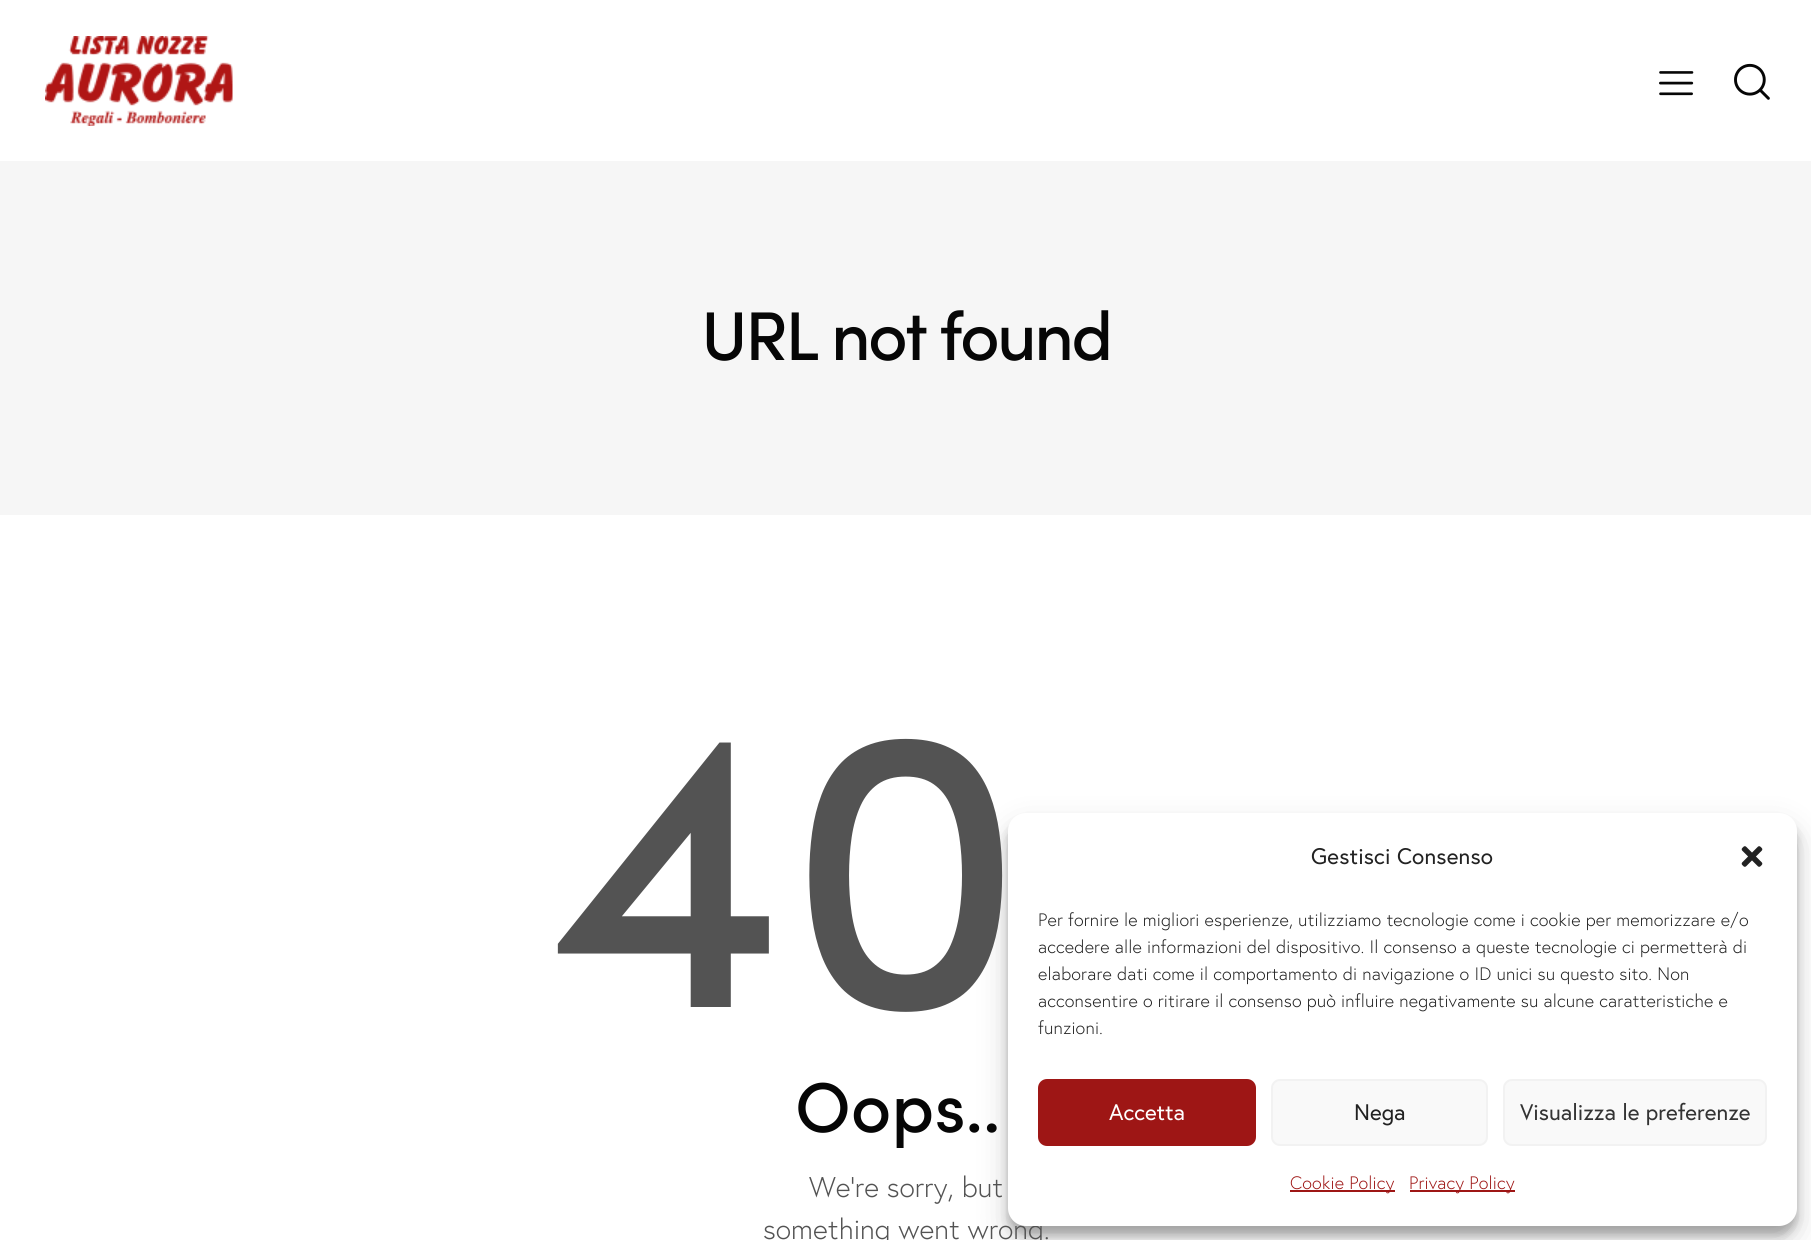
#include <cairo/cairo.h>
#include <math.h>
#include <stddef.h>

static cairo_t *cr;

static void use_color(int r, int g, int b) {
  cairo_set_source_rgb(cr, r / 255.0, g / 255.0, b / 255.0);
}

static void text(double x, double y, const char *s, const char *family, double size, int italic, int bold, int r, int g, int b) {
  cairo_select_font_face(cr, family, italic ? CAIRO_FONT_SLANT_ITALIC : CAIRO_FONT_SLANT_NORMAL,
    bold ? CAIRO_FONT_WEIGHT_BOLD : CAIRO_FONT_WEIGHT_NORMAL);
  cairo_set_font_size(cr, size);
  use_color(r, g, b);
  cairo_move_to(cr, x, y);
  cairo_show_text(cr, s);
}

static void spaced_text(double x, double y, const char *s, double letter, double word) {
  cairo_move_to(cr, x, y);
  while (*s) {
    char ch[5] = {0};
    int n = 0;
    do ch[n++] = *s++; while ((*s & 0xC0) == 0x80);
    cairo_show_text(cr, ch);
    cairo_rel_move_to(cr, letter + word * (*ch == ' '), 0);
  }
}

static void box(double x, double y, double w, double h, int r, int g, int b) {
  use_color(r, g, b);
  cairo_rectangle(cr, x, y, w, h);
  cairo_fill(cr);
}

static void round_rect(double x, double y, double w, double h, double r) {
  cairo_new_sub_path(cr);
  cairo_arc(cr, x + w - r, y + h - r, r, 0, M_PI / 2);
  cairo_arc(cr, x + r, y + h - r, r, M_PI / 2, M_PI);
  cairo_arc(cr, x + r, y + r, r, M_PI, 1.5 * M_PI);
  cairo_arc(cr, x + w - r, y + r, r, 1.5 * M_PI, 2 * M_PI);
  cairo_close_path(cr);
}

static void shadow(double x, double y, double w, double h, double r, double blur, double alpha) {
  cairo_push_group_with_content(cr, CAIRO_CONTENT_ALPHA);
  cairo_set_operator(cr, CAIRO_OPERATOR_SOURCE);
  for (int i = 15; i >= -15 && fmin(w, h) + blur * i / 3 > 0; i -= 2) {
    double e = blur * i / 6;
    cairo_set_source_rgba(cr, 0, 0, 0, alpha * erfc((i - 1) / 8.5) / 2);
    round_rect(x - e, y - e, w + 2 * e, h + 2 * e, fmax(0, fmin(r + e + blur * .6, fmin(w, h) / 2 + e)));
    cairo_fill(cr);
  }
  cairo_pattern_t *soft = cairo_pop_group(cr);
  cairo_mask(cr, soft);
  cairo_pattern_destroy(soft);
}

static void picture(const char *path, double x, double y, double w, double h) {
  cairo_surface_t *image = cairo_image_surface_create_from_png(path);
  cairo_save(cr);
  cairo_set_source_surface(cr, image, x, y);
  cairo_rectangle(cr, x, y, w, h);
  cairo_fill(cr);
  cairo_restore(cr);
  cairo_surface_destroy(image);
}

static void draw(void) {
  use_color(255, 255, 255);
  cairo_paint(cr);
  picture("img_01.png", 45, 36, 188, 90);
  picture("img_02.png", 1659, 71, 35, 25);
  picture("img_03.png", 1734, 63, 36, 37);
  box(0, 161, 1811, 354, 246, 246, 246);
  use_color(0, 0, 0);
  shadow(1008, 822, 789, 413, 18, 4.5, 0.23);
  shadow(1008, 828, 789, 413, 18, 15, 0.19);
  cairo_select_font_face(cr, "Sofia Medium", CAIRO_FONT_SLANT_NORMAL, CAIRO_FONT_WEIGHT_NORMAL);
  cairo_set_font_size(cr, 69);
  use_color(6, 6, 6);
  spaced_text(701, 360, "URL not found", -2.75, 0);
  text(553, 1007, "40", "Sofia Medium", 405, 0, 0, 83, 83, 83);
  text(795, 1132, "Oops..", "Sofia Medium", 70.5, 0, 0, 6, 6, 6);
  text(809, 1197, "We're sorry, but", "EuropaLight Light", 28.5, 0, 0, 83, 83, 83);
  text(763, 1239, "something went wrong.", "EuropaLight Light", 28.5, 0, 0, 83, 83, 83);
  use_color(255, 255, 255);
  round_rect(1008, 813, 789, 413, 18);
  cairo_fill(cr);
  cairo_select_font_face(cr, "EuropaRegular", CAIRO_FONT_SLANT_NORMAL, CAIRO_FONT_WEIGHT_NORMAL);
  cairo_set_font_size(cr, 22.5);
  use_color(34, 34, 34);
  spaced_text(1311, 864, "Gestisci Consenso", 0.15, 0);
  picture("img_04.png", 1741, 846, 22, 21);
  cairo_select_font_face(cr, "EuropaLight Light", CAIRO_FONT_SLANT_NORMAL, CAIRO_FONT_WEIGHT_NORMAL);
  cairo_set_font_size(cr, 18);
  spaced_text(1038, 926, "Per fornire le migliori esperienze, utilizziamo tecnologie come i cookie per memorizzare e/o", 0.15, 0);
  spaced_text(1038, 953, "accedere alle informazioni del dispositivo. Il consenso a queste tecnologie ci permetterà di", 0.15, 0);
  spaced_text(1038, 980, "elaborare dati come il comportamento di navigazione o ID unici su questo sito. Non", 0.15, 0);
  spaced_text(1038, 1007, "acconsentire o ritirare il consenso può influire negativamente su alcune caratteristiche e", 0.15, 0);
  spaced_text(1038, 1034, "funzioni.", 0.15, 0);
  use_color(158, 22, 21);
  round_rect(1039, 1080, 216, 65, 8);
  cairo_fill_preserve(cr);
  cairo_stroke(cr);
  text(1109, 1120, "Accetta", "EuropaRegular", 22.5, 0, 0, 255, 255, 255);
  use_color(249, 249, 249);
  round_rect(1272, 1080, 215, 65, 8);
  cairo_fill_preserve(cr);
  use_color(242, 242, 242);
  cairo_stroke(cr);
  text(1354, 1120, "Nega", "EuropaRegular", 22.5, 0, 0, 34, 34, 34);
  use_color(249, 249, 249);
  round_rect(1504, 1080, 262, 65, 8);
  cairo_fill_preserve(cr);
  use_color(242, 242, 242);
  cairo_stroke(cr);
  text(1520, 1120, "Visualizza le preferenze", "EuropaRegular", 22.5, 0, 0, 51, 51, 51);
  box(1290, 1190, 105, 2, 158, 22, 21);
  cairo_select_font_face(cr, "EuropaLight Light", CAIRO_FONT_SLANT_NORMAL, CAIRO_FONT_WEIGHT_NORMAL);
  cairo_set_font_size(cr, 18);
  spaced_text(1290, 1189, "Cookie Policy", 0.15, 0);
  box(1410, 1190, 105, 2, 158, 22, 21);
  spaced_text(1409, 1189, "Privacy Policy", 0.15, 0);
}

int main(void) {
  cairo_surface_t *surface = cairo_image_surface_create(CAIRO_FORMAT_RGB24, 1811, 1240);
  cr = cairo_create(surface);
  cairo_font_options_t *options = cairo_font_options_create();
  cairo_font_options_set_hint_metrics(options, CAIRO_HINT_METRICS_OFF);
  cairo_font_options_set_hint_style(options, CAIRO_HINT_STYLE_NONE);
  cairo_set_font_options(cr, options);
  cairo_set_miter_limit(cr, 4);
  draw();
  cairo_surface_write_to_png(surface, "out.png");
  cairo_font_options_destroy(options);
  cairo_destroy(cr);
  cairo_surface_destroy(surface);
  return 0;
}
